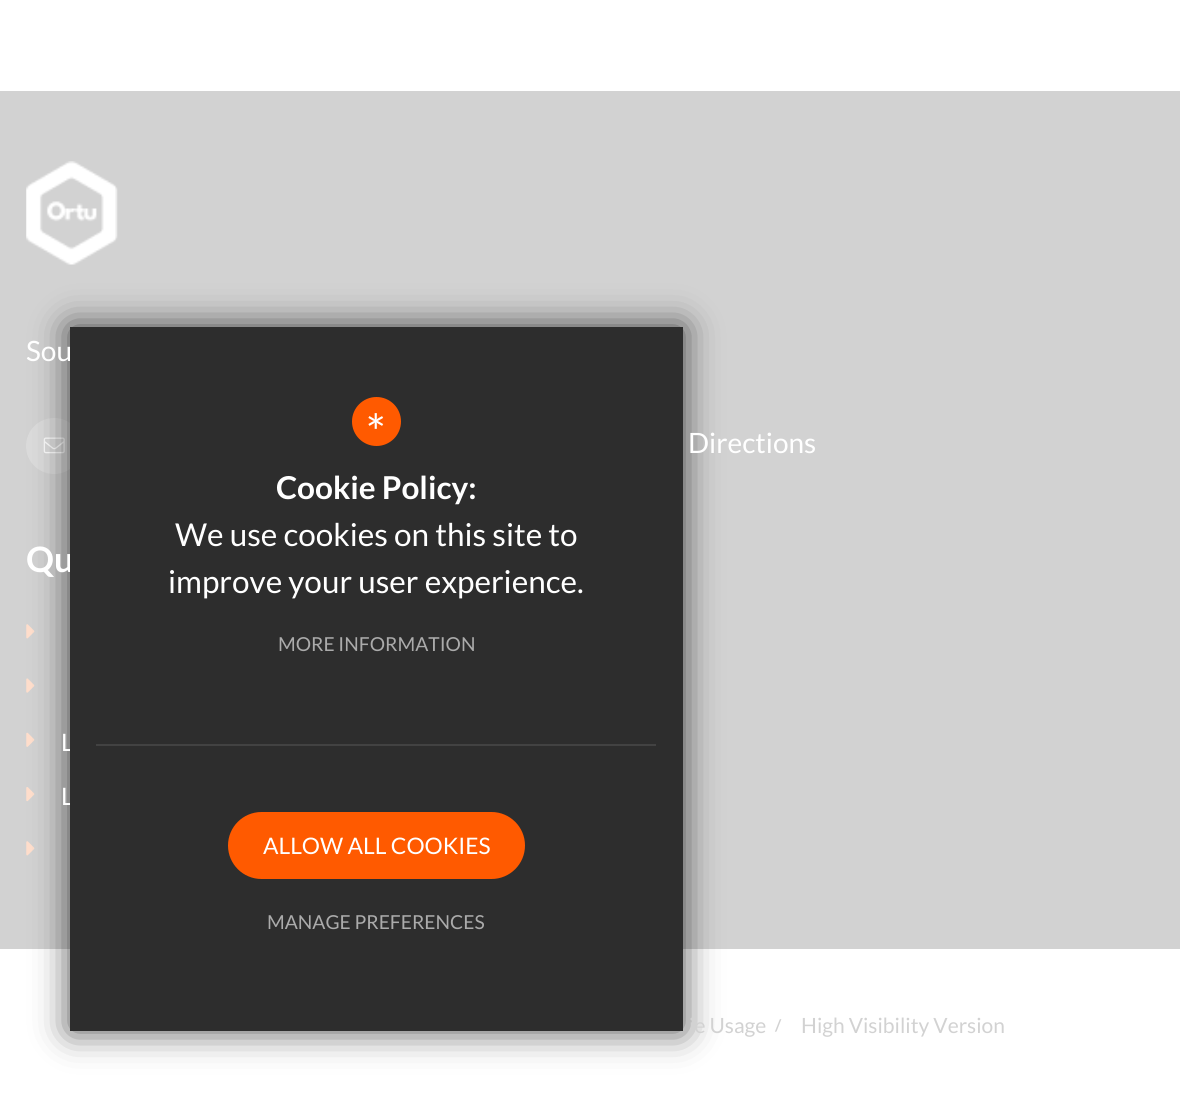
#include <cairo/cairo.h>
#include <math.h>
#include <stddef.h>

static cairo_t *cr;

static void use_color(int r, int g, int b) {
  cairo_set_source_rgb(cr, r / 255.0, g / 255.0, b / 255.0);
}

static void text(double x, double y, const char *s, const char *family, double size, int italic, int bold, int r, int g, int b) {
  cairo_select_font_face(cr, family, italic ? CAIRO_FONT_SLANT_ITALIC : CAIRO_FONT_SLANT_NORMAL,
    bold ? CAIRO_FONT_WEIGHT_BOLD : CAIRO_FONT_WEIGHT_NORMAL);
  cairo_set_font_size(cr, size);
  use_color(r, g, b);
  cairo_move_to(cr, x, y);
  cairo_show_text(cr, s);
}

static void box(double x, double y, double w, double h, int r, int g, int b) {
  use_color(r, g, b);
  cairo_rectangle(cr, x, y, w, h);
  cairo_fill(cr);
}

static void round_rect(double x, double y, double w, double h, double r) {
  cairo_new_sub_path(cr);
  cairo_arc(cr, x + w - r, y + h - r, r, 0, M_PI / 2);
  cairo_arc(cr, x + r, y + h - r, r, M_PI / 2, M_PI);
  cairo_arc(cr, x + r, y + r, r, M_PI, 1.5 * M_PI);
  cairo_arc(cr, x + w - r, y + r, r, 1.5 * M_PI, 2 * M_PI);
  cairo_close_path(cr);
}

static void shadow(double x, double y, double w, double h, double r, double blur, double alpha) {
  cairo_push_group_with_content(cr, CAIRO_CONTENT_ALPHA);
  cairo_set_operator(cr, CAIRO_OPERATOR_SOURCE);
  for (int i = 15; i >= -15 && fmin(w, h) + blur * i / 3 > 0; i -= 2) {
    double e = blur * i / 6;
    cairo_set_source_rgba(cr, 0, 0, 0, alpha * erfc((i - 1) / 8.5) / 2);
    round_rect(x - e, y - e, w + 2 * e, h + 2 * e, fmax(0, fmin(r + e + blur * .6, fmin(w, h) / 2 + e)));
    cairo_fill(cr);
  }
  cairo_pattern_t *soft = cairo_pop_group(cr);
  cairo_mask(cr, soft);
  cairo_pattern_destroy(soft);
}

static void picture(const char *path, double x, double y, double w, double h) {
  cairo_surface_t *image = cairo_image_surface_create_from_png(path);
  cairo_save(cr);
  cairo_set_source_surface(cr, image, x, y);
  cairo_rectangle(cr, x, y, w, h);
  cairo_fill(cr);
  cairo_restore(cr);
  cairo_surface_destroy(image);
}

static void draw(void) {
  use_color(255, 255, 255);
  cairo_paint(cr);
  box(0, 91, 1180, 858, 210, 210, 210);
  picture("img_01.png", 26, 161, 92, 104);
  use_color(219, 219, 219);
  cairo_arc(cr, 54, 446, 28, 0, 2 * M_PI);
  cairo_fill(cr);
  picture("img_02.png", 43, 437, 22, 17);
  picture("img_03.png", 26, 624, 9, 15);
  picture("img_04.png", 26, 678, 9, 15);
  picture("img_05.png", 26, 732, 9, 15);
  picture("img_06.png", 26, 787, 9, 15);
  picture("img_03.png", 26, 841, 9, 15);
  use_color(0, 0, 0);
  shadow(70, 327, 613, 704, 0, 17.5, 0.7);
  text(26, 361, "Sou", "Lato", 28, 0, 0, 255, 255, 255);
  text(688, 453, "Directions", "Lato", 28, 0, 0, 255, 255, 255);
  text(26, 572, "Qu", "Lato", 35, 0, 1, 255, 255, 255);
  text(61, 751, "L", "Lato", 24, 0, 0, 255, 255, 255);
  text(61, 805, "L", "Lato", 24, 0, 0, 255, 255, 255);
  box(70, 327, 613, 704, 45, 45, 45);
  box(96, 744, 560, 2, 66, 66, 66);
  use_color(255, 90, 0);
  cairo_new_path(cr);
  cairo_arc(cr, 376.5, 421.5, 24.5, 0, 2 * M_PI);
  cairo_fill(cr);
  text(366, 450, "*", "Lato", 49, 0, 0, 255, 255, 255);
  text(276, 499, "Cookie Policy:", "Lato", 31.5, 0, 1, 255, 255, 255);
  text(175, 546, "We use cookies on this site to", "Lato", 31.5, 0, 0, 255, 255, 255);
  text(168, 593, "improve your user experience.", "Lato", 31.5, 0, 0, 255, 255, 255);
  text(278, 651, "MORE INFORMATION", "Lato", 19.25, 0, 0, 171, 171, 171);
  use_color(255, 90, 0);
  round_rect(228, 812, 297, 67, 33.5);
  cairo_fill(cr);
  text(263, 854, "ALLOW ALL COOKIES", "Lato", 22.75, 0, 0, 255, 255, 255);
  text(267, 929, "MANAGE PREFERENCES", "Lato", 19.25, 0, 0, 171, 171, 171);
  text(689, 1033, "ie Usage", "Lato", 21, 0, 0, 210, 210, 210);
  text(775, 1031, "/", "Lato", 16, 0, 1, 210, 210, 210);
  text(801, 1033, "High Visibility Version", "Lato", 21, 0, 0, 210, 210, 210);
}

int main(void) {
  cairo_surface_t *surface = cairo_image_surface_create(CAIRO_FORMAT_RGB24, 1180, 1100);
  cr = cairo_create(surface);
  cairo_font_options_t *options = cairo_font_options_create();
  cairo_font_options_set_hint_metrics(options, CAIRO_HINT_METRICS_OFF);
  cairo_font_options_set_hint_style(options, CAIRO_HINT_STYLE_NONE);
  cairo_set_font_options(cr, options);
  cairo_set_miter_limit(cr, 4);
  draw();
  cairo_surface_write_to_png(surface, "out.png");
  cairo_font_options_destroy(options);
  cairo_destroy(cr);
  cairo_surface_destroy(surface);
  return 0;
}
